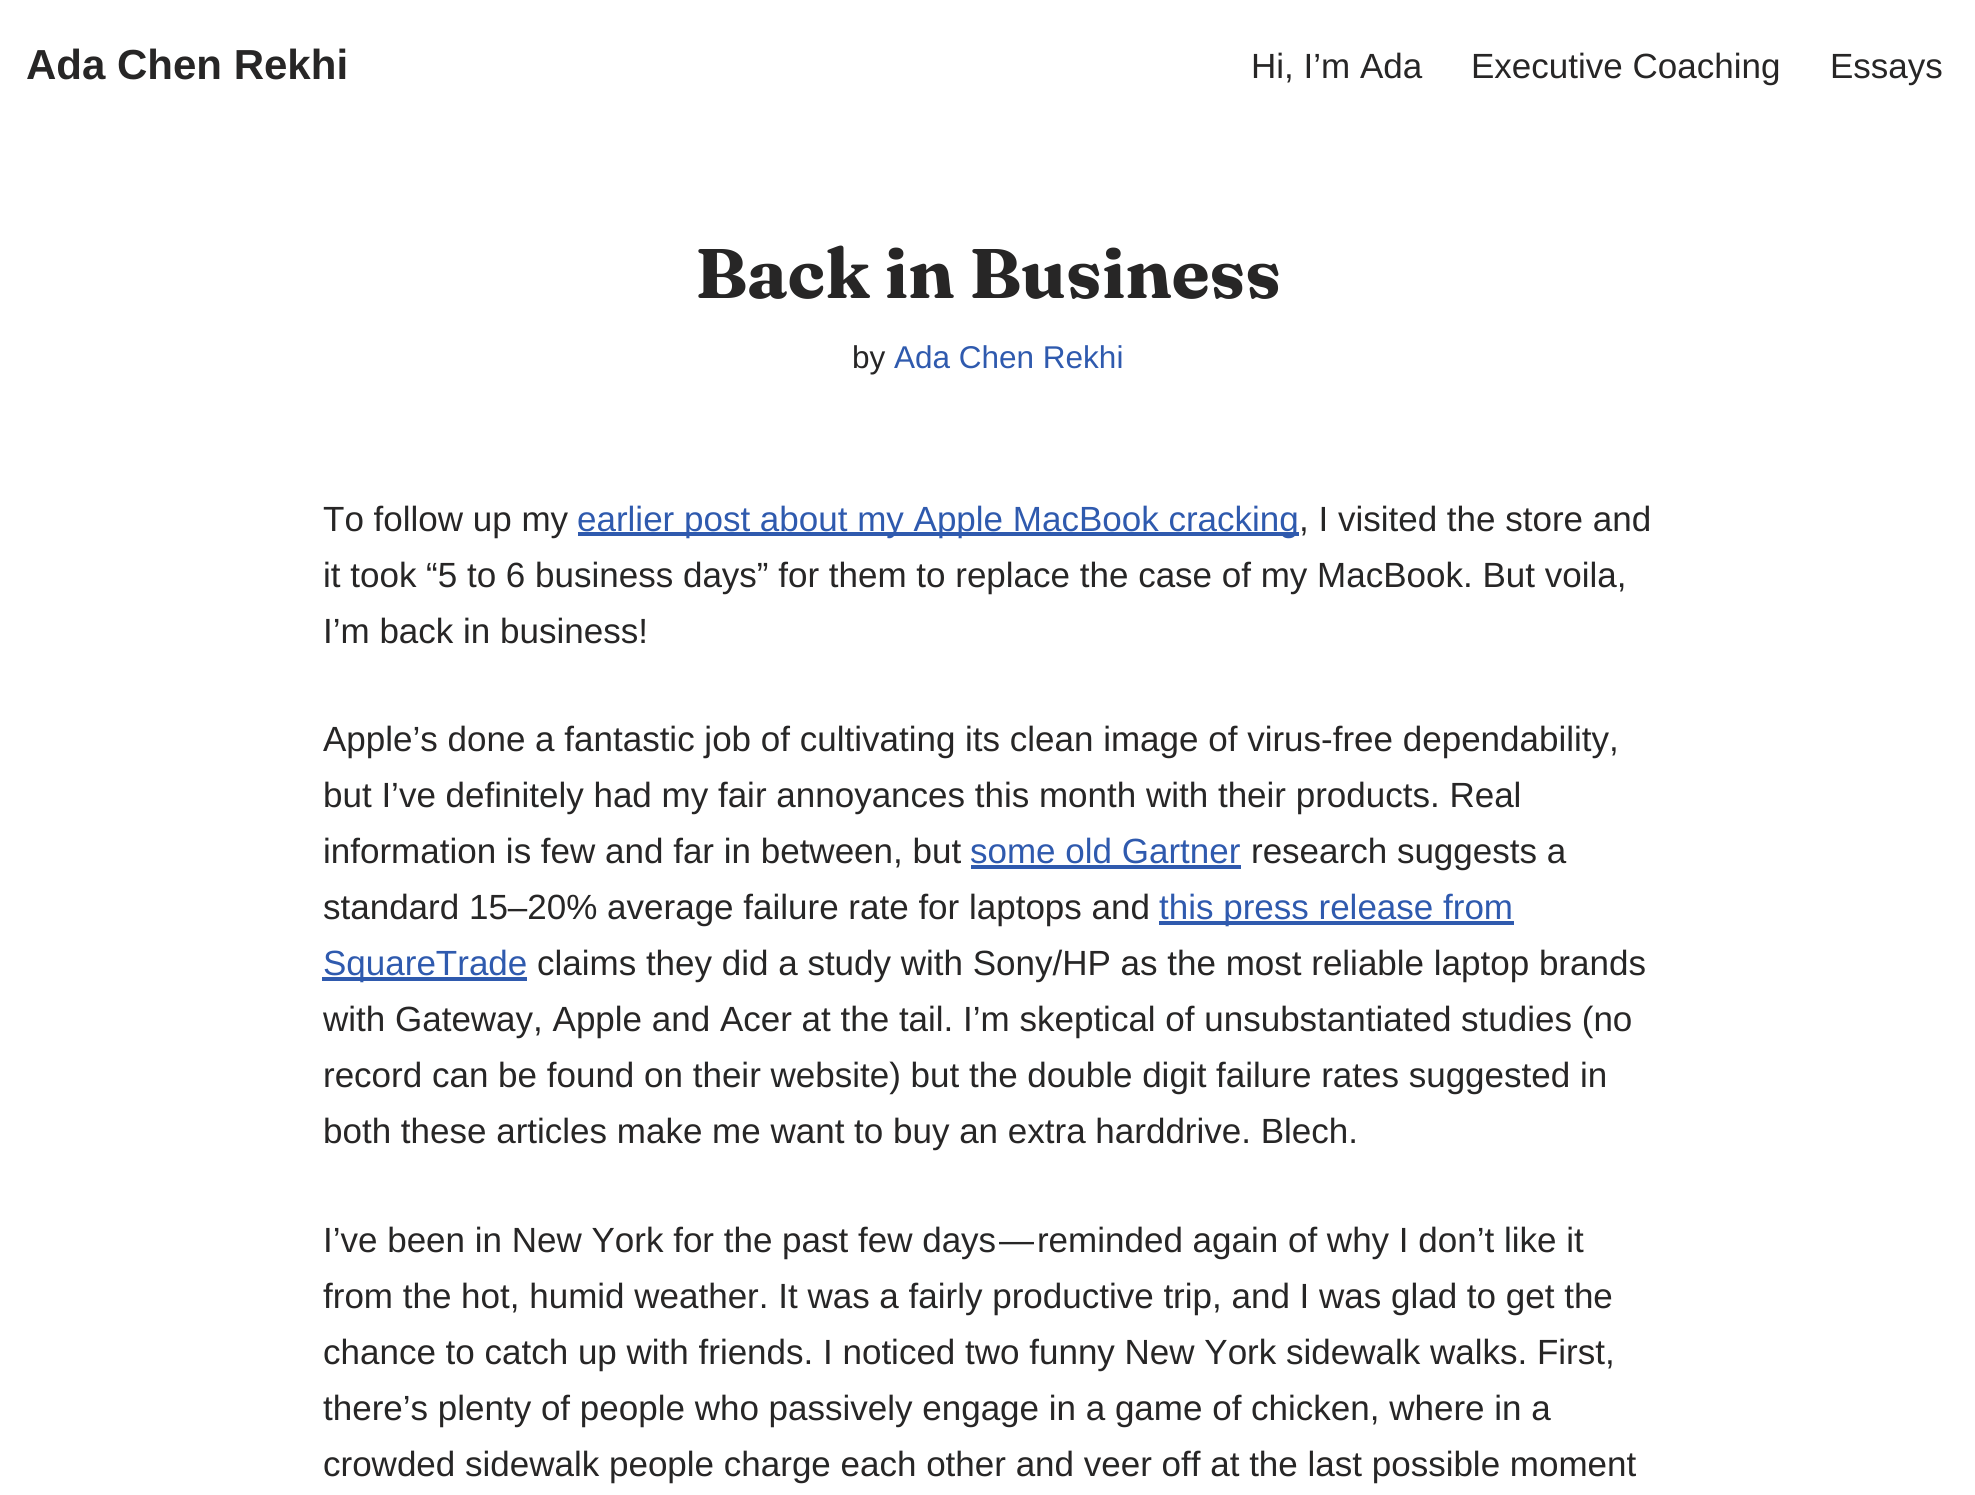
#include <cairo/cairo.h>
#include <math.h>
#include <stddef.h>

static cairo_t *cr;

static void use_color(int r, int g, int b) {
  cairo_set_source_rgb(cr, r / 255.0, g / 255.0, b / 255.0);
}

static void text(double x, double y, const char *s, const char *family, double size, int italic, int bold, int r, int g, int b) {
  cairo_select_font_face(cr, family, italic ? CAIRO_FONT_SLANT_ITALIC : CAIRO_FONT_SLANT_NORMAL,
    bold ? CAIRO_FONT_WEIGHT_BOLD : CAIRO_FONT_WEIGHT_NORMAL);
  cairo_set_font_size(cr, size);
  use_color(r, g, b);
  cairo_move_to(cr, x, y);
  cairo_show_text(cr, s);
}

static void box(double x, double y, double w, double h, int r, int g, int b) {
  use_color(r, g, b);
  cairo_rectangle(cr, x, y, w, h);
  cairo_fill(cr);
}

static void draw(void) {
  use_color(255, 255, 255);
  cairo_paint(cr);
  box(578, 532, 721, 4, 47, 90, 174);
  box(971, 865, 270, 4, 47, 90, 174);
  box(1159, 921, 355, 4, 47, 90, 174);
  box(322, 977, 205, 4, 47, 90, 174);
  text(26, 79, "Ada Chen Rekhi", "Liberation Sans", 42, 0, 1, 39, 38, 38);
  text(1251, 78, "Hi, I’m Ada", "Liberation Sans", 35, 0, 0, 39, 38, 38);
  text(1471, 78, "Executive Coaching", "Liberation Sans", 35, 0, 0, 39, 38, 38);
  text(1830, 78, "Essays", "Liberation Sans", 35, 0, 0, 39, 38, 38);
  text(695, 298, "Back in Business", "Fraunces", 70, 0, 1, 39, 38, 38);
  text(852, 368, "by", "Liberation Sans", 31.5, 0, 0, 39, 38, 38);
  text(894, 368, "Ada Chen Rekhi", "Liberation Sans", 31.5, 0, 0, 47, 90, 174);
  text(323, 531, "To follow up my", "Liberation Sans", 35, 0, 0, 39, 38, 38);
  text(577, 531, "earlier post about my Apple MacBook cracking", "Liberation Sans", 35, 0, 0, 47, 90, 174);
  text(1299, 531, ", I visited the store and", "Liberation Sans", 35, 0, 0, 39, 38, 38);
  text(323, 587, "it took “5 to 6 business days” for them to replace the case of my MacBook. But voila,", "Liberation Sans", 35, 0, 0, 39, 38, 38);
  text(323, 643, "I’m back in business!", "Liberation Sans", 35, 0, 0, 39, 38, 38);
  text(323, 751, "Apple’s done a fantastic job of cultivating its clean image of virus-free dependability,", "Liberation Sans", 35, 0, 0, 39, 38, 38);
  text(323, 807, "but I’ve definitely had my fair annoyances this month with their products. Real", "Liberation Sans", 35, 0, 0, 39, 38, 38);
  text(323, 863, "information is few and far in between, but", "Liberation Sans", 35, 0, 0, 39, 38, 38);
  text(970, 863, "some old Gartner", "Liberation Sans", 35, 0, 0, 47, 90, 174);
  text(1251, 863, "research suggests a", "Liberation Sans", 35, 0, 0, 39, 38, 38);
  text(323, 919, "standard 15–20% average failure rate for laptops and", "Liberation Sans", 35, 0, 0, 39, 38, 38);
  text(1159, 919, "this press release from", "Liberation Sans", 35, 0, 0, 47, 90, 174);
  text(323, 975, "SquareTrade", "Liberation Sans", 35, 0, 0, 47, 90, 174);
  text(537, 975, "claims they did a study with Sony/HP as the most reliable laptop brands", "Liberation Sans", 35, 0, 0, 39, 38, 38);
  text(323, 1031, "with Gateway, Apple and Acer at the tail. I’m skeptical of unsubstantiated studies (no", "Liberation Sans", 35, 0, 0, 39, 38, 38);
  text(323, 1087, "record can be found on their website) but the double digit failure rates suggested in", "Liberation Sans", 35, 0, 0, 39, 38, 38);
  text(323, 1143, "both these articles make me want to buy an extra harddrive. Blech.", "Liberation Sans", 35, 0, 0, 39, 38, 38);
  text(323, 1252, "I’ve been in New York for the past few days — reminded again of why I don’t like it", "Liberation Sans", 35, 0, 0, 39, 38, 38);
  text(323, 1308, "from the hot, humid weather. It was a fairly productive trip, and I was glad to get the", "Liberation Sans", 35, 0, 0, 39, 38, 38);
  text(323, 1364, "chance to catch up with friends. I noticed two funny New York sidewalk walks. First,", "Liberation Sans", 35, 0, 0, 39, 38, 38);
  text(323, 1420, "there’s plenty of people who passively engage in a game of chicken, where in a", "Liberation Sans", 35, 0, 0, 39, 38, 38);
  text(323, 1476, "crowded sidewalk people charge each other and veer off at the last possible moment", "Liberation Sans", 35, 0, 0, 39, 38, 38);
}

int main(void) {
  cairo_surface_t *surface = cairo_image_surface_create(CAIRO_FORMAT_RGB24, 1975, 1495);
  cr = cairo_create(surface);
  cairo_font_options_t *options = cairo_font_options_create();
  cairo_font_options_set_hint_metrics(options, CAIRO_HINT_METRICS_OFF);
  cairo_font_options_set_hint_style(options, CAIRO_HINT_STYLE_NONE);
  cairo_set_font_options(cr, options);
  cairo_set_miter_limit(cr, 4);
  draw();
  cairo_surface_write_to_png(surface, "out.png");
  cairo_font_options_destroy(options);
  cairo_destroy(cr);
  cairo_surface_destroy(surface);
  return 0;
}
